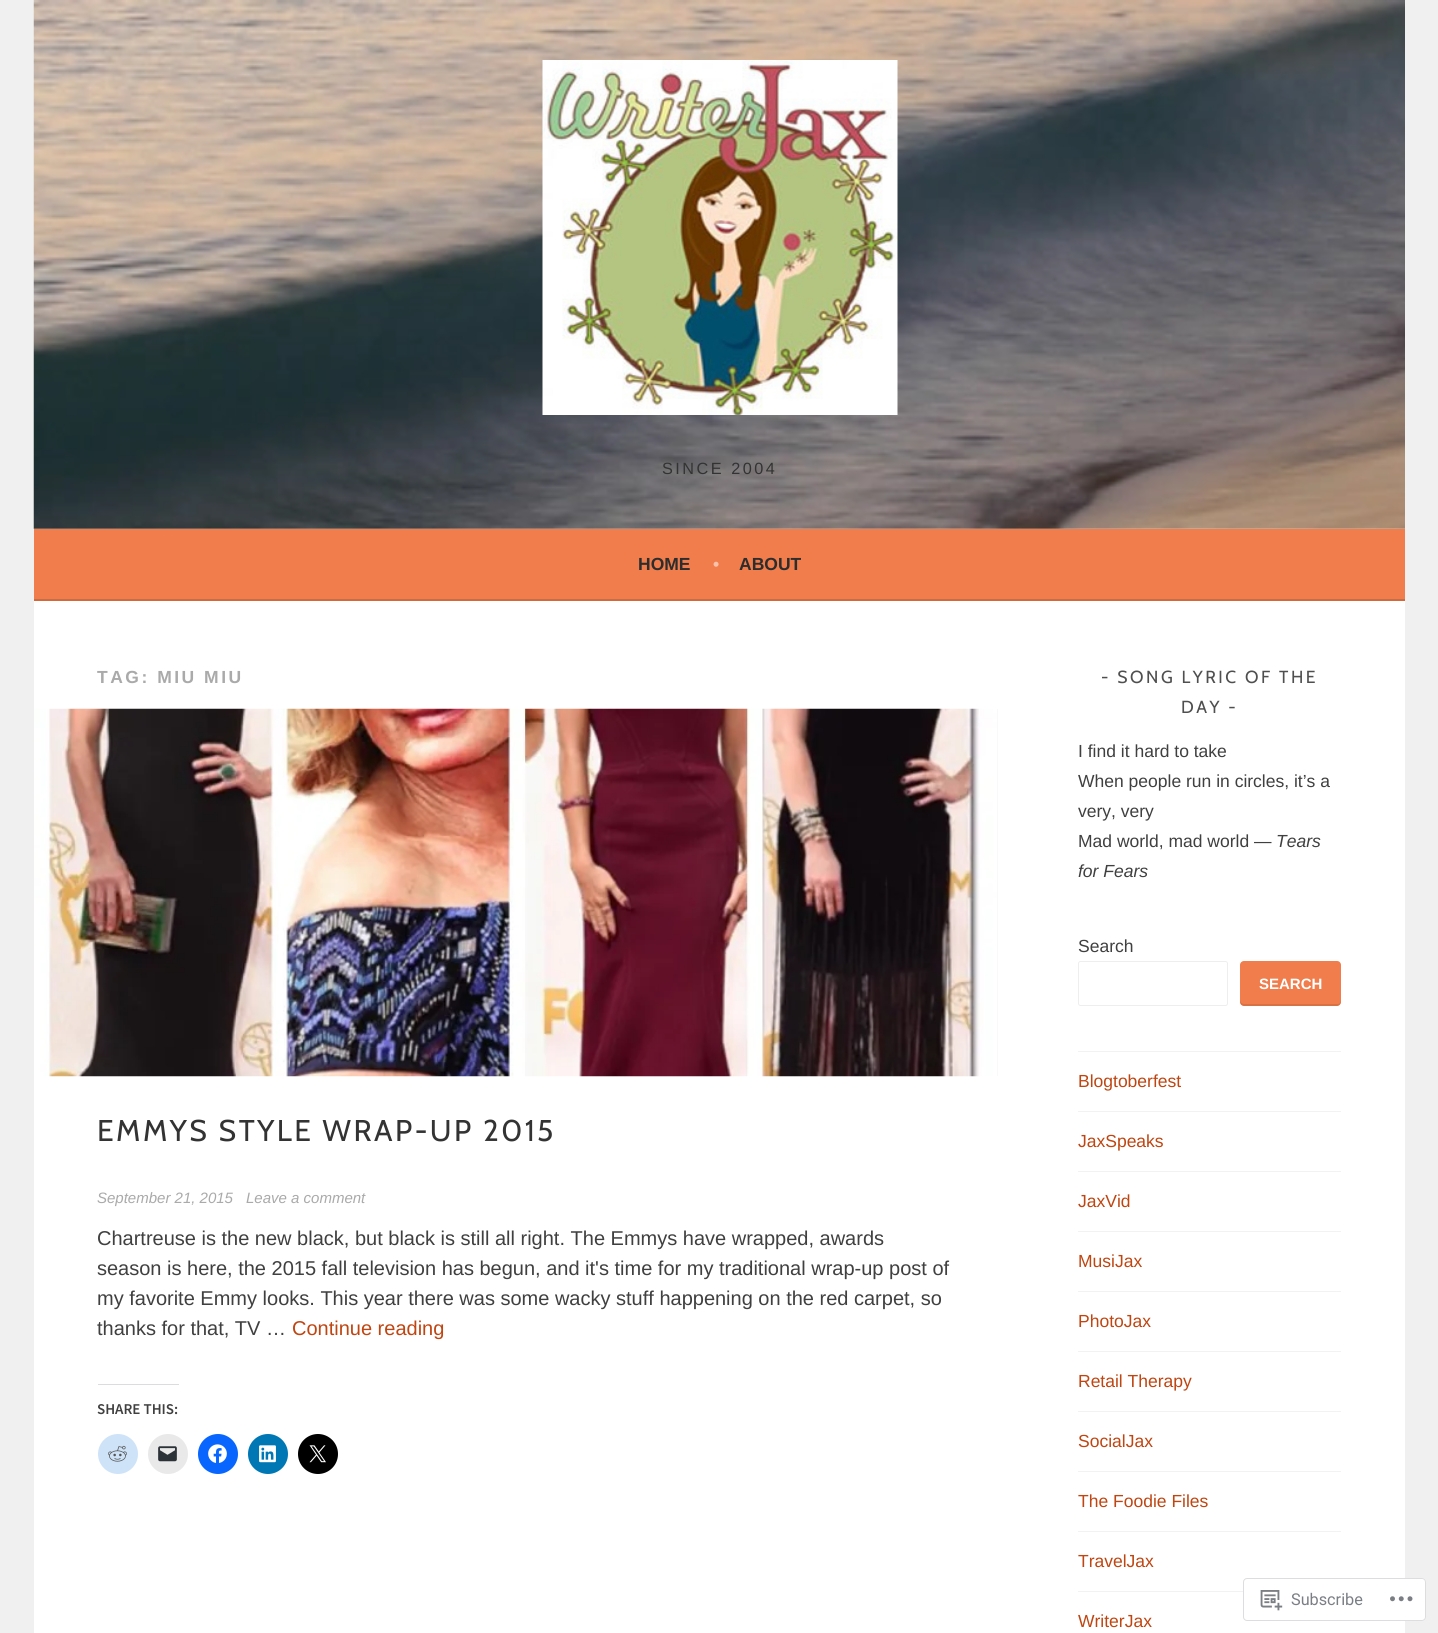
#include <cairo/cairo.h>
#include <math.h>
#include <stddef.h>

static cairo_t *cr;

static void use_color(int r, int g, int b) {
  cairo_set_source_rgb(cr, r / 255.0, g / 255.0, b / 255.0);
}

static void text(double x, double y, const char *s, const char *family, double size, int italic, int bold, int r, int g, int b) {
  cairo_select_font_face(cr, family, italic ? CAIRO_FONT_SLANT_ITALIC : CAIRO_FONT_SLANT_NORMAL,
    bold ? CAIRO_FONT_WEIGHT_BOLD : CAIRO_FONT_WEIGHT_NORMAL);
  cairo_set_font_size(cr, size);
  use_color(r, g, b);
  cairo_move_to(cr, x, y);
  cairo_show_text(cr, s);
}

static void spaced_text(double x, double y, const char *s, double letter, double word) {
  cairo_move_to(cr, x, y);
  while (*s) {
    char ch[5] = {0};
    int n = 0;
    do ch[n++] = *s++; while ((*s & 0xC0) == 0x80);
    cairo_show_text(cr, ch);
    cairo_rel_move_to(cr, letter + word * (*ch == ' '), 0);
  }
}

static void box(double x, double y, double w, double h, int r, int g, int b) {
  use_color(r, g, b);
  cairo_rectangle(cr, x, y, w, h);
  cairo_fill(cr);
}

static void round_rect(double x, double y, double w, double h, double r) {
  cairo_new_sub_path(cr);
  cairo_arc(cr, x + w - r, y + h - r, r, 0, M_PI / 2);
  cairo_arc(cr, x + r, y + h - r, r, M_PI / 2, M_PI);
  cairo_arc(cr, x + r, y + r, r, M_PI, 1.5 * M_PI);
  cairo_arc(cr, x + w - r, y + r, r, 1.5 * M_PI, 2 * M_PI);
  cairo_close_path(cr);
}

static void picture(const char *path, double x, double y, double w, double h) {
  cairo_surface_t *image = cairo_image_surface_create_from_png(path);
  cairo_save(cr);
  cairo_set_source_surface(cr, image, x, y);
  cairo_rectangle(cr, x, y, w, h);
  cairo_fill(cr);
  cairo_restore(cr);
  cairo_surface_destroy(image);
}

static void draw(void) {
  use_color(240, 240, 240);
  cairo_paint(cr);
  picture("img_01.png", 33, 0, 1372, 529);
  picture("img_02.png", 542, 60, 356, 355);
  box(34, 529, 1371, 70, 240, 125, 75);
  box(34, 599, 1371, 2, 204, 106, 64);
  box(34, 601, 1371, 1032, 255, 255, 255);
  box(997, 709, 1, 367, 248, 249, 248);
  picture("img_03.png", 34, 708, 963, 369);
  box(98, 1384, 81, 1, 220, 220, 222);
  use_color(206, 227, 248);
  cairo_arc(cr, 118, 1454, 20, 0, 2 * M_PI);
  cairo_fill(cr);
  picture("img_04.png", 108, 1445, 19, 17);
  use_color(233, 233, 233);
  cairo_arc(cr, 168, 1454, 20, 0, 2 * M_PI);
  cairo_fill(cr);
  picture("img_05.png", 158, 1446, 19, 16);
  use_color(8, 102, 255);
  cairo_arc(cr, 218, 1454, 20, 0, 2 * M_PI);
  cairo_fill(cr);
  picture("img_06.png", 208, 1444, 19, 19);
  use_color(0, 119, 181);
  cairo_arc(cr, 268, 1454, 20, 0, 2 * M_PI);
  cairo_fill(cr);
  picture("img_07.png", 259, 1445, 17, 18);
  use_color(0, 0, 0);
  cairo_arc(cr, 318, 1454, 20, 0, 2 * M_PI);
  cairo_fill(cr);
  picture("img_08.png", 309, 1445, 17, 18);
  round_rect(1078.5, 961.5, 149, 44, 2);
  use_color(238, 238, 238);
  cairo_set_line_width(cr, 1);
  cairo_stroke(cr);
  use_color(240, 125, 75);
  round_rect(1240, 961, 101, 45, 4);
  cairo_fill(cr);
  cairo_set_source_rgba(cr, 0, 0, 0, 0.1);
  cairo_new_path(cr);
  cairo_move_to(cr, 1240, 1000);
  cairo_line_to(cr, 1240, 1002);
  cairo_curve_to(cr, 1240, 1004, 1242, 1006, 1244, 1006);
  cairo_line_to(cr, 1337, 1006);
  cairo_curve_to(cr, 1339, 1006, 1341, 1004, 1341, 1002);
  cairo_line_to(cr, 1341, 1000);
  cairo_curve_to(cr, 1341, 1002, 1340, 1004, 1338, 1004);
  cairo_line_to(cr, 1244, 1004);
  cairo_curve_to(cr, 1242, 1004, 1240, 1002, 1240, 1000);
  cairo_close_path(cr);
  cairo_fill(cr);
  box(1078, 1051, 263, 1, 242, 242, 242);
  box(1078, 1111, 263, 1, 242, 242, 242);
  box(1078, 1171, 263, 1, 242, 242, 242);
  box(1078, 1231, 263, 1, 242, 242, 242);
  box(1078, 1291, 263, 1, 242, 242, 242);
  box(1078, 1351, 263, 1, 242, 242, 242);
  box(1078, 1411, 263, 1, 242, 242, 242);
  box(1078, 1471, 263, 1, 242, 242, 242);
  box(1078, 1531, 263, 1, 242, 242, 242);
  box(1078, 1591, 263, 1, 242, 242, 242);
  cairo_set_source_rgba(cr, 1, 1, 1, 0.98);
  round_rect(1243, 1578, 183, 43, 4);
  cairo_fill(cr);
  round_rect(1243.5, 1578.5, 182, 42, 3.5);
  cairo_set_source_rgba(cr, 0.863, 0.863, 0.871, 0.98);
  cairo_stroke(cr);
  picture("img_09.png", 1260, 1590, 23, 21);
  picture("img_10.png", 1390, 1596, 23, 6);
  cairo_select_font_face(cr, "Arimo", CAIRO_FONT_SLANT_NORMAL, CAIRO_FONT_WEIGHT_NORMAL);
  cairo_set_font_size(cr, 16.25);
  use_color(51, 51, 51);
  spaced_text(662, 474, "SINCE 2004", 2.5, 0);
  text(638, 570, "HOME", "Arimo", 17.5, 0, 1, 45, 45, 45);
  text(713, 570, "•", "Arimo", 17.5, 0, 1, 248, 193, 170);
  text(739, 570, "ABOUT", "Arimo", 17.5, 0, 1, 45, 45, 45);
  use_color(170, 170, 170);
  spaced_text(97, 683, "TAG: MIU MIU", 2.5, 0);
  cairo_select_font_face(cr, "Cabin", CAIRO_FONT_SLANT_NORMAL, CAIRO_FONT_WEIGHT_NORMAL);
  cairo_set_font_size(cr, 30);
  use_color(51, 51, 51);
  spaced_text(97, 1141, "EMMYS STYLE WRAP-UP 2015", 2.5, 0);
  text(97, 1203, "September 21, 2015", "Arimo", 15, 1, 0, 170, 170, 170);
  text(246, 1203, "Leave a comment", "Arimo", 15, 1, 0, 170, 170, 170);
  text(97, 1245, "Chartreuse is the new black, but black is still all right. The Emmys have wrapped, awards", "Arimo", 20, 0, 0, 64, 64, 64);
  text(97, 1275, "season is here, the 2015 fall television has begun, and it's time for my traditional wrap-up post of", "Arimo", 20, 0, 0, 64, 64, 64);
  text(97, 1305, "my favorite Emmy looks. This year there was some wacky stuff happening on the red carpet, so", "Arimo", 20, 0, 0, 64, 64, 64);
  text(97, 1335, "thanks for that, TV …", "Arimo", 20, 0, 0, 64, 64, 64);
  text(292, 1335, "Continue reading", "Arimo", 20, 0, 0, 191, 69, 17);
  text(97, 1414, "SHARE THIS:", "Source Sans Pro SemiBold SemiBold", 15, 0, 0, 64, 64, 64);
  cairo_select_font_face(cr, "Cabin", CAIRO_FONT_SLANT_NORMAL, CAIRO_FONT_WEIGHT_NORMAL);
  cairo_set_font_size(cr, 17.5);
  use_color(79, 79, 79);
  spaced_text(1101, 683, "- SONG LYRIC OF THE", 2.5, 0);
  spaced_text(1181, 713, "DAY -", 2.5, 0);
  text(1078, 757, "I find it hard to take", "Arimo", 17.5, 0, 0, 64, 64, 64);
  text(1078, 787, "When people run in circles, it’s a", "Arimo", 17.5, 0, 0, 64, 64, 64);
  text(1078, 817, "very, very", "Arimo", 17.5, 0, 0, 64, 64, 64);
  text(1078, 847, "Mad world, mad world —", "Arimo", 17.5, 0, 0, 64, 64, 64);
  text(1276, 847, "Tears", "Arimo", 17.5, 1, 0, 64, 64, 64);
  text(1078, 877, "for Fears", "Arimo", 17.5, 1, 0, 64, 64, 64);
  text(1078, 952, "Search", "Arimo", 17.5, 0, 0, 64, 64, 64);
  text(1259, 989, "SEARCH", "Arimo", 15, 0, 1, 255, 255, 255);
  text(1078, 1087, "Blogtoberfest", "Arimo", 17.5, 0, 0, 191, 69, 17);
  text(1078, 1147, "JaxSpeaks", "Arimo", 17.5, 0, 0, 191, 69, 17);
  text(1078, 1207, "JaxVid", "Arimo", 17.5, 0, 0, 191, 69, 17);
  text(1078, 1267, "MusiJax", "Arimo", 17.5, 0, 0, 191, 69, 17);
  text(1078, 1327, "PhotoJax", "Arimo", 17.5, 0, 0, 191, 69, 17);
  text(1078, 1387, "Retail Therapy", "Arimo", 17.5, 0, 0, 191, 69, 17);
  text(1078, 1447, "SocialJax", "Arimo", 17.5, 0, 0, 191, 69, 17);
  text(1078, 1507, "The Foodie Files", "Arimo", 17.5, 0, 0, 191, 69, 17);
  text(1078, 1567, "TravelJax", "Arimo", 17.5, 0, 0, 191, 69, 17);
  text(1078, 1627, "WriterJax", "Arimo", 17.5, 0, 0, 191, 69, 17);
  text(1291, 1605, "Subscribe", "Roboto", 16.25, 0, 0, 123, 127, 133);
}

int main(void) {
  cairo_surface_t *surface = cairo_image_surface_create(CAIRO_FORMAT_RGB24, 1438, 1633);
  cr = cairo_create(surface);
  cairo_font_options_t *options = cairo_font_options_create();
  cairo_font_options_set_hint_metrics(options, CAIRO_HINT_METRICS_OFF);
  cairo_font_options_set_hint_style(options, CAIRO_HINT_STYLE_NONE);
  cairo_set_font_options(cr, options);
  cairo_set_miter_limit(cr, 4);
  draw();
  cairo_surface_write_to_png(surface, "out.png");
  cairo_font_options_destroy(options);
  cairo_destroy(cr);
  cairo_surface_destroy(surface);
  return 0;
}
